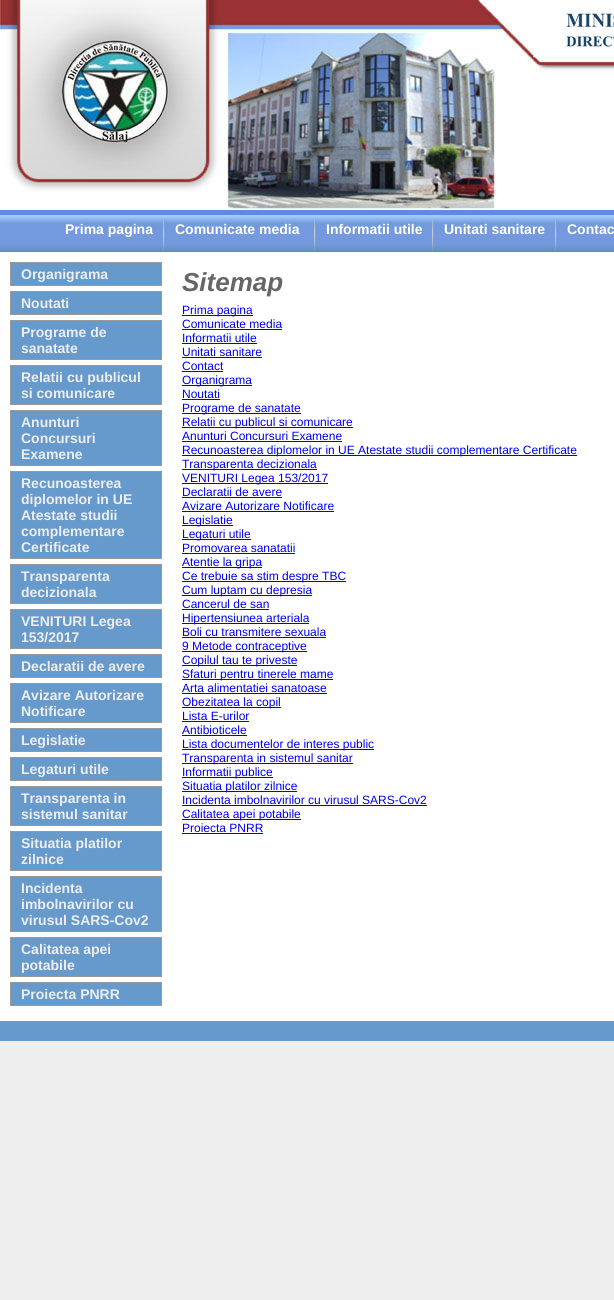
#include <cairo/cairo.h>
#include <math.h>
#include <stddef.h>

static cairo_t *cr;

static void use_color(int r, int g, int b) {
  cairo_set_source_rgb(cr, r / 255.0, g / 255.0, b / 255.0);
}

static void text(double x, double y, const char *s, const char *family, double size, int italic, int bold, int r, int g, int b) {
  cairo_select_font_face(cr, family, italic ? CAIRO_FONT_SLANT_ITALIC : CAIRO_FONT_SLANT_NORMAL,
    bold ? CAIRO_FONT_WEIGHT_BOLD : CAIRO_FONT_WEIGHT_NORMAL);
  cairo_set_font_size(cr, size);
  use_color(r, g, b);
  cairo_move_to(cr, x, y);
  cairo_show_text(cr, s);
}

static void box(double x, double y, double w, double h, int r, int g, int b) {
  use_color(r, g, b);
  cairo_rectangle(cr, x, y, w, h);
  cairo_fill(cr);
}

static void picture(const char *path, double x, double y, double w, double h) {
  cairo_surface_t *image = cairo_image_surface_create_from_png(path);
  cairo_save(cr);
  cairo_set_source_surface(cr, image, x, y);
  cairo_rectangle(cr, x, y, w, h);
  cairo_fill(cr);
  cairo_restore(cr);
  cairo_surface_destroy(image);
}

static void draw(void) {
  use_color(238, 238, 238);
  cairo_paint(cr);
  picture("img_01.png", 0, 0, 614, 210);
  picture("img_02.png", 0, 210, 614, 42);
  picture("img_03.png", 163, 217, 2, 35);
  picture("img_03.png", 314, 217, 2, 35);
  picture("img_03.png", 432, 217, 2, 35);
  picture("img_03.png", 555, 217, 2, 35);
  box(0, 252, 614, 769, 255, 255, 255);
  cairo_rectangle(cr, 10.5, 262.5, 151, 23);
  use_color(153, 153, 153);
  cairo_set_line_width(cr, 1);
  cairo_stroke(cr);
  box(11, 263, 150, 22, 102, 153, 204);
  cairo_rectangle(cr, 10.5, 291.5, 151, 23);
  use_color(153, 153, 153);
  cairo_stroke(cr);
  box(11, 292, 150, 22, 102, 153, 204);
  cairo_rectangle(cr, 10.5, 320.5, 151, 39);
  use_color(153, 153, 153);
  cairo_stroke(cr);
  box(11, 321, 150, 38, 102, 153, 204);
  cairo_rectangle(cr, 10.5, 365.5, 151, 39);
  use_color(153, 153, 153);
  cairo_stroke(cr);
  box(11, 366, 150, 38, 102, 153, 204);
  cairo_rectangle(cr, 10.5, 410.5, 151, 55);
  use_color(153, 153, 153);
  cairo_stroke(cr);
  box(11, 411, 150, 54, 102, 153, 204);
  cairo_rectangle(cr, 10.5, 471.5, 151, 87);
  use_color(153, 153, 153);
  cairo_stroke(cr);
  box(11, 472, 150, 86, 102, 153, 204);
  cairo_rectangle(cr, 10.5, 564.5, 151, 39);
  use_color(153, 153, 153);
  cairo_stroke(cr);
  box(11, 565, 150, 38, 102, 153, 204);
  cairo_rectangle(cr, 10.5, 609.5, 151, 39);
  use_color(153, 153, 153);
  cairo_stroke(cr);
  box(11, 610, 150, 38, 102, 153, 204);
  cairo_rectangle(cr, 10.5, 654.5, 151, 23);
  use_color(153, 153, 153);
  cairo_stroke(cr);
  box(11, 655, 150, 22, 102, 153, 204);
  cairo_rectangle(cr, 10.5, 683.5, 151, 39);
  use_color(153, 153, 153);
  cairo_stroke(cr);
  box(11, 684, 150, 38, 102, 153, 204);
  cairo_rectangle(cr, 10.5, 728.5, 151, 23);
  use_color(153, 153, 153);
  cairo_stroke(cr);
  box(11, 729, 150, 22, 102, 153, 204);
  cairo_rectangle(cr, 10.5, 757.5, 151, 23);
  use_color(153, 153, 153);
  cairo_stroke(cr);
  box(11, 758, 150, 22, 102, 153, 204);
  cairo_rectangle(cr, 10.5, 786.5, 151, 39);
  use_color(153, 153, 153);
  cairo_stroke(cr);
  box(11, 787, 150, 38, 102, 153, 204);
  cairo_rectangle(cr, 10.5, 831.5, 151, 39);
  use_color(153, 153, 153);
  cairo_stroke(cr);
  box(11, 832, 150, 38, 102, 153, 204);
  cairo_rectangle(cr, 10.5, 876.5, 151, 55);
  use_color(153, 153, 153);
  cairo_stroke(cr);
  box(11, 877, 150, 54, 102, 153, 204);
  cairo_rectangle(cr, 10.5, 937.5, 151, 39);
  use_color(153, 153, 153);
  cairo_stroke(cr);
  box(11, 938, 150, 38, 102, 153, 204);
  cairo_rectangle(cr, 10.5, 982.5, 151, 23);
  use_color(153, 153, 153);
  cairo_stroke(cr);
  box(11, 983, 150, 22, 102, 153, 204);
  box(182, 315, 71, 1, 0, 0, 238);
  box(182, 329, 100, 1, 0, 0, 238);
  box(182, 343, 75, 1, 0, 0, 238);
  box(182, 357, 80, 1, 0, 0, 238);
  box(182, 371, 41, 1, 0, 0, 238);
  box(182, 385, 70, 1, 0, 0, 238);
  box(182, 399, 38, 1, 0, 0, 238);
  box(182, 413, 119, 1, 0, 0, 238);
  box(182, 427, 171, 1, 0, 0, 238);
  box(182, 441, 160, 1, 0, 0, 238);
  box(182, 455, 395, 1, 0, 0, 238);
  box(182, 469, 135, 1, 0, 0, 238);
  box(182, 483, 146, 1, 0, 0, 238);
  box(182, 497, 100, 1, 0, 0, 238);
  box(182, 511, 152, 1, 0, 0, 238);
  box(182, 525, 51, 1, 0, 0, 238);
  box(182, 539, 69, 1, 0, 0, 238);
  box(182, 553, 113, 1, 0, 0, 238);
  box(182, 567, 80, 1, 0, 0, 238);
  box(182, 581, 164, 1, 0, 0, 238);
  box(182, 595, 130, 1, 0, 0, 238);
  box(182, 609, 87, 1, 0, 0, 238);
  box(182, 623, 127, 1, 0, 0, 238);
  box(182, 637, 144, 1, 0, 0, 238);
  box(182, 651, 125, 1, 0, 0, 238);
  box(182, 665, 115, 1, 0, 0, 238);
  box(182, 679, 151, 1, 0, 0, 238);
  box(182, 693, 145, 1, 0, 0, 238);
  box(182, 707, 99, 1, 0, 0, 238);
  box(182, 721, 67, 1, 0, 0, 238);
  box(182, 735, 65, 1, 0, 0, 238);
  box(182, 749, 192, 1, 0, 0, 238);
  box(182, 763, 171, 1, 0, 0, 238);
  box(182, 777, 91, 1, 0, 0, 238);
  box(182, 791, 115, 1, 0, 0, 238);
  box(182, 805, 245, 1, 0, 0, 238);
  box(182, 819, 119, 1, 0, 0, 238);
  box(182, 833, 81, 1, 0, 0, 238);
  box(0, 1021, 614, 20, 102, 153, 204);
  text(65, 234, "Prima pagina", "Liberation Sans", 14, 0, 1, 255, 255, 255);
  text(175, 234, "Comunicate media", "Liberation Sans", 14, 0, 1, 255, 255, 255);
  text(326, 234, "Informatii utile", "Liberation Sans", 14, 0, 1, 255, 255, 255);
  text(444, 234, "Unitati sanitare", "Liberation Sans", 14, 0, 1, 255, 255, 255);
  text(567, 234, "Contac", "Liberation Sans", 14, 0, 1, 255, 255, 255);
  text(21, 279, "Organigrama", "Liberation Sans", 14, 0, 1, 238, 238, 238);
  text(21, 308, "Noutati", "Liberation Sans", 14, 0, 1, 238, 238, 238);
  text(21, 337, "Programe de", "Liberation Sans", 14, 0, 1, 238, 238, 238);
  text(21, 353, "sanatate", "Liberation Sans", 14, 0, 1, 238, 238, 238);
  text(21, 382, "Relatii cu publicul", "Liberation Sans", 14, 0, 1, 238, 238, 238);
  text(21, 398, "si comunicare", "Liberation Sans", 14, 0, 1, 238, 238, 238);
  text(21, 427, "Anunturi", "Liberation Sans", 14, 0, 1, 238, 238, 238);
  text(21, 443, "Concursuri", "Liberation Sans", 14, 0, 1, 238, 238, 238);
  text(21, 459, "Examene", "Liberation Sans", 14, 0, 1, 238, 238, 238);
  text(21, 488, "Recunoasterea", "Liberation Sans", 14, 0, 1, 238, 238, 238);
  text(21, 504, "diplomelor in UE", "Liberation Sans", 14, 0, 1, 238, 238, 238);
  text(21, 520, "Atestate studii", "Liberation Sans", 14, 0, 1, 238, 238, 238);
  text(21, 536, "complementare", "Liberation Sans", 14, 0, 1, 238, 238, 238);
  text(21, 552, "Certificate", "Liberation Sans", 14, 0, 1, 238, 238, 238);
  text(21, 581, "Transparenta", "Liberation Sans", 14, 0, 1, 238, 238, 238);
  text(21, 597, "decizionala", "Liberation Sans", 14, 0, 1, 238, 238, 238);
  text(21, 626, "VENITURI Legea", "Liberation Sans", 14, 0, 1, 238, 238, 238);
  text(21, 642, "153/2017", "Liberation Sans", 14, 0, 1, 238, 238, 238);
  text(21, 671, "Declaratii de avere", "Liberation Sans", 14, 0, 1, 238, 238, 238);
  text(21, 700, "Avizare Autorizare", "Liberation Sans", 14, 0, 1, 238, 238, 238);
  text(21, 716, "Notificare", "Liberation Sans", 14, 0, 1, 238, 238, 238);
  text(21, 745, "Legislatie", "Liberation Sans", 14, 0, 1, 238, 238, 238);
  text(21, 774, "Legaturi utile", "Liberation Sans", 14, 0, 1, 238, 238, 238);
  text(21, 803, "Transparenta in", "Liberation Sans", 14, 0, 1, 238, 238, 238);
  text(21, 819, "sistemul sanitar", "Liberation Sans", 14, 0, 1, 238, 238, 238);
  text(21, 848, "Situatia platilor", "Liberation Sans", 14, 0, 1, 238, 238, 238);
  text(21, 864, "zilnice", "Liberation Sans", 14, 0, 1, 238, 238, 238);
  text(21, 893, "Incidenta", "Liberation Sans", 14, 0, 1, 238, 238, 238);
  text(21, 909, "imbolnavirilor cu", "Liberation Sans", 14, 0, 1, 238, 238, 238);
  text(21, 925, "virusul SARS-Cov2", "Liberation Sans", 14, 0, 1, 238, 238, 238);
  text(21, 954, "Calitatea apei", "Liberation Sans", 14, 0, 1, 238, 238, 238);
  text(21, 970, "potabile", "Liberation Sans", 14, 0, 1, 238, 238, 238);
  text(21, 999, "Proiecta PNRR", "Liberation Sans", 14, 0, 1, 238, 238, 238);
  text(182, 291, "Sitemap", "Liberation Sans", 26, 1, 1, 102, 102, 102);
  text(182, 314, "Prima pagina", "Liberation Sans", 12, 0, 0, 0, 0, 238);
  text(182, 328, "Comunicate media", "Liberation Sans", 12, 0, 0, 0, 0, 238);
  text(182, 342, "Informatii utile", "Liberation Sans", 12, 0, 0, 0, 0, 238);
  text(182, 356, "Unitati sanitare", "Liberation Sans", 12, 0, 0, 0, 0, 238);
  text(182, 370, "Contact", "Liberation Sans", 12, 0, 0, 0, 0, 238);
  text(182, 384, "Organigrama", "Liberation Sans", 12, 0, 0, 0, 0, 238);
  text(182, 398, "Noutati", "Liberation Sans", 12, 0, 0, 0, 0, 238);
  text(182, 412, "Programe de sanatate", "Liberation Sans", 12, 0, 0, 0, 0, 238);
  text(182, 426, "Relatii cu publicul si comunicare", "Liberation Sans", 12, 0, 0, 0, 0, 238);
  text(182, 440, "Anunturi Concursuri Examene", "Liberation Sans", 12, 0, 0, 0, 0, 238);
  text(182, 454, "Recunoasterea diplomelor in UE Atestate studii complementare Certificate", "Liberation Sans", 12, 0, 0, 0, 0, 238);
  text(182, 468, "Transparenta decizionala", "Liberation Sans", 12, 0, 0, 0, 0, 238);
  text(182, 482, "VENITURI Legea 153/2017", "Liberation Sans", 12, 0, 0, 0, 0, 238);
  text(182, 496, "Declaratii de avere", "Liberation Sans", 12, 0, 0, 0, 0, 238);
  text(182, 510, "Avizare Autorizare Notificare", "Liberation Sans", 12, 0, 0, 0, 0, 238);
  text(182, 524, "Legislatie", "Liberation Sans", 12, 0, 0, 0, 0, 238);
  text(182, 538, "Legaturi utile", "Liberation Sans", 12, 0, 0, 0, 0, 238);
  text(182, 552, "Promovarea sanatatii", "Liberation Sans", 12, 0, 0, 0, 0, 238);
  text(182, 566, "Atentie la gripa", "Liberation Sans", 12, 0, 0, 0, 0, 238);
  text(182, 580, "Ce trebuie sa stim despre TBC", "Liberation Sans", 12, 0, 0, 0, 0, 238);
  text(182, 594, "Cum luptam cu depresia", "Liberation Sans", 12, 0, 0, 0, 0, 238);
  text(182, 608, "Cancerul de san", "Liberation Sans", 12, 0, 0, 0, 0, 238);
  text(182, 622, "Hipertensiunea arteriala", "Liberation Sans", 12, 0, 0, 0, 0, 238);
  text(182, 636, "Boli cu transmitere sexuala", "Liberation Sans", 12, 0, 0, 0, 0, 238);
  text(182, 650, "9 Metode contraceptive", "Liberation Sans", 12, 0, 0, 0, 0, 238);
  text(182, 664, "Copilul tau te priveste", "Liberation Sans", 12, 0, 0, 0, 0, 238);
  text(182, 678, "Sfaturi pentru tinerele mame", "Liberation Sans", 12, 0, 0, 0, 0, 238);
  text(182, 692, "Arta alimentatiei sanatoase", "Liberation Sans", 12, 0, 0, 0, 0, 238);
  text(182, 706, "Obezitatea la copil", "Liberation Sans", 12, 0, 0, 0, 0, 238);
  text(182, 720, "Lista E-urilor", "Liberation Sans", 12, 0, 0, 0, 0, 238);
  text(182, 734, "Antibioticele", "Liberation Sans", 12, 0, 0, 0, 0, 238);
  text(182, 748, "Lista documentelor de interes public", "Liberation Sans", 12, 0, 0, 0, 0, 238);
  text(182, 762, "Transparenta in sistemul sanitar", "Liberation Sans", 12, 0, 0, 0, 0, 238);
  text(182, 776, "Informatii publice", "Liberation Sans", 12, 0, 0, 0, 0, 238);
  text(182, 790, "Situatia platilor zilnice", "Liberation Sans", 12, 0, 0, 0, 0, 238);
  text(182, 804, "Incidenta imbolnavirilor cu virusul SARS-Cov2", "Liberation Sans", 12, 0, 0, 0, 0, 238);
  text(182, 818, "Calitatea apei potabile", "Liberation Sans", 12, 0, 0, 0, 0, 238);
  text(182, 832, "Proiecta PNRR", "Liberation Sans", 12, 0, 0, 0, 0, 238);
}

int main(void) {
  cairo_surface_t *surface = cairo_image_surface_create(CAIRO_FORMAT_RGB24, 614, 1300);
  cr = cairo_create(surface);
  cairo_font_options_t *options = cairo_font_options_create();
  cairo_font_options_set_hint_metrics(options, CAIRO_HINT_METRICS_OFF);
  cairo_font_options_set_hint_style(options, CAIRO_HINT_STYLE_NONE);
  cairo_set_font_options(cr, options);
  cairo_set_miter_limit(cr, 4);
  draw();
  cairo_surface_write_to_png(surface, "out.png");
  cairo_font_options_destroy(options);
  cairo_destroy(cr);
  cairo_surface_destroy(surface);
  return 0;
}
